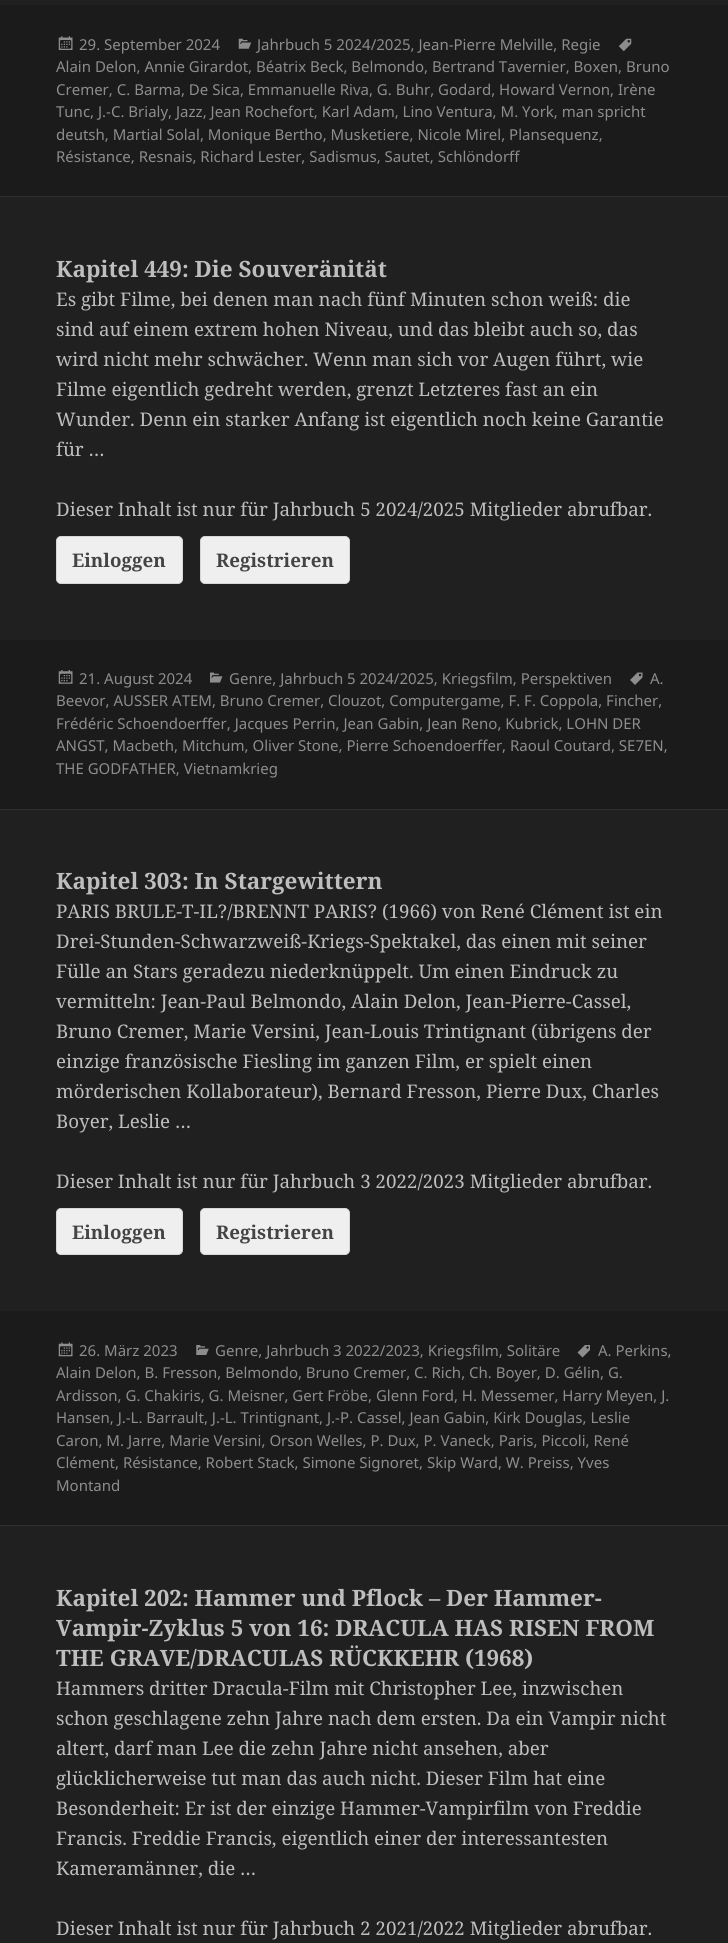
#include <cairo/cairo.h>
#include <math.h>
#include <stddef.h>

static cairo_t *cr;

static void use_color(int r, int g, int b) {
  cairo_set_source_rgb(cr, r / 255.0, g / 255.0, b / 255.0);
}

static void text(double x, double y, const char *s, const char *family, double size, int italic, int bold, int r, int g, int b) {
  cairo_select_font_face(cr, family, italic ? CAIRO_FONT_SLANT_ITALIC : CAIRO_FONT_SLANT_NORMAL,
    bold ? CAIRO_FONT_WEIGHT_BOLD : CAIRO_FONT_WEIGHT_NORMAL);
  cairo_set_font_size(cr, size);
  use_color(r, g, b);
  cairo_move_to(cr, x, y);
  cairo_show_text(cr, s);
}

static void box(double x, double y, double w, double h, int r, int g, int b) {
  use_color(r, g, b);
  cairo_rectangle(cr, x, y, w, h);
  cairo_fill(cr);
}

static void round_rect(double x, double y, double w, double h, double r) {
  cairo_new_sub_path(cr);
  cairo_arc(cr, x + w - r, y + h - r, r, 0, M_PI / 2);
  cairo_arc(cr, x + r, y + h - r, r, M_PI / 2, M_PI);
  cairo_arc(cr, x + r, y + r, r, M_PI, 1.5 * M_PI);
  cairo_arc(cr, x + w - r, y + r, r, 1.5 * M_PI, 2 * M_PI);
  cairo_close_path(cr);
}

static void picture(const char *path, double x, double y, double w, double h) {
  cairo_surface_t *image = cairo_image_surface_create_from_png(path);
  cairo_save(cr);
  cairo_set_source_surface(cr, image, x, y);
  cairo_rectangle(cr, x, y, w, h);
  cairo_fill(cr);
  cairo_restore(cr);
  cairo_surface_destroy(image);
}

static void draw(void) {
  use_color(32, 32, 32);
  cairo_paint(cr);
  box(0, 5, 728, 191, 27, 27, 27);
  picture("img_01.png", 58, 36, 15, 14);
  picture("img_02.png", 238, 38, 14, 11);
  picture("img_03.png", 618, 38, 14, 14);
  box(0, 196, 728, 1, 48, 48, 48);
  use_color(239, 239, 239);
  round_rect(56.5, 536.5, 126, 47, 4.5);
  cairo_fill_preserve(cr);
  use_color(214, 214, 214);
  cairo_set_line_width(cr, 1);
  cairo_stroke(cr);
  use_color(239, 239, 239);
  round_rect(200.5, 536.5, 149, 47, 4.5);
  cairo_fill_preserve(cr);
  use_color(214, 214, 214);
  cairo_stroke(cr);
  box(0, 640, 728, 169, 27, 27, 27);
  picture("img_04.png", 210, 672, 13, 11);
  picture("img_05.png", 630, 672, 13, 13);
  picture("img_06.png", 58, 670, 15, 14);
  box(0, 809, 728, 1, 48, 48, 48);
  use_color(239, 239, 239);
  round_rect(56.5, 1208.5, 126, 46, 4.5);
  cairo_fill_preserve(cr);
  use_color(214, 214, 214);
  cairo_stroke(cr);
  use_color(239, 239, 239);
  round_rect(200.5, 1208.5, 149, 46, 4.5);
  cairo_fill_preserve(cr);
  use_color(214, 214, 214);
  cairo_stroke(cr);
  box(0, 1311, 728, 214, 27, 27, 27);
  picture("img_07.png", 577, 1345, 13, 13);
  picture("img_08.png", 58, 1342, 15, 15);
  picture("img_09.png", 196, 1345, 13, 10);
  box(0, 1525, 728, 1, 48, 48, 48);
  text(79, 50, "29. September 2024", "Noto Sans", 15, 0, 0, 141, 141, 141);
  text(257, 50, "Jahrbuch 5 2024/2025, Jean-Pierre Melville, Regie", "Noto Sans", 15, 0, 0, 141, 141, 141);
  text(56, 72, "Alain Delon, Annie Girardot, Béatrix Beck, Belmondo, Bertrand Tavernier, Boxen, Bruno", "Noto Sans", 15, 0, 0, 141, 141, 141);
  text(56, 95, "Cremer, C. Barma, De Sica, Emmanuelle Riva, G. Buhr, Godard, Howard Vernon, Irène", "Noto Sans", 15, 0, 0, 141, 141, 141);
  text(56, 117, "Tunc, J.-C. Brialy, Jazz, Jean Rochefort, Karl Adam, Lino Ventura, M. York, man spricht", "Noto Sans", 15, 0, 0, 141, 141, 141);
  text(56, 140, "deutsh, Martial Solal, Monique Bertho, Musketiere, Nicole Mirel, Plansequenz,", "Noto Sans", 15, 0, 0, 141, 141, 141);
  text(56, 162, "Résistance, Resnais, Richard Lester, Sadismus, Sautet, Schlöndorff", "Noto Sans", 15, 0, 0, 141, 141, 141);
  text(56, 277, "Kapitel 449: Die Souveränität", "Noto Serif", 22.5, 0, 1, 190, 190, 190);
  text(56, 306, "Es gibt Filme, bei denen man nach fünf Minuten schon weiß: die", "Noto Serif", 18.75, 0, 0, 190, 190, 190);
  text(56, 336, "sind auf einem extrem hohen Niveau, und das bleibt auch so, das", "Noto Serif", 18.75, 0, 0, 190, 190, 190);
  text(56, 366, "wird nicht mehr schwächer. Wenn man sich vor Augen führt, wie", "Noto Serif", 18.75, 0, 0, 190, 190, 190);
  text(56, 396, "Filme eigentlich gedreht werden, grenzt Letzteres fast an ein", "Noto Serif", 18.75, 0, 0, 190, 190, 190);
  text(56, 426, "Wunder. Denn ein starker Anfang ist eigentlich noch keine Garantie", "Noto Serif", 18.75, 0, 0, 190, 190, 190);
  text(56, 456, "für …", "Noto Serif", 18.75, 0, 0, 190, 190, 190);
  text(56, 516, "Dieser Inhalt ist nur für Jahrbuch 5 2024/2025 Mitglieder abrufbar.", "Noto Serif", 18.75, 0, 0, 190, 190, 190);
  text(72, 567, "Einloggen", "Noto Serif", 18.75, 0, 1, 68, 68, 68);
  text(216, 567, "Registrieren", "Noto Serif", 18.75, 0, 1, 68, 68, 68);
  text(229, 684, "Genre, Jahrbuch 5 2024/2025, Kriegsfilm, Perspektiven", "Noto Sans", 15, 0, 0, 141, 141, 141);
  text(650, 684, "A.", "Noto Sans", 15, 0, 0, 141, 141, 141);
  text(56, 706, "Beevor, AUSSER ATEM, Bruno Cremer, Clouzot, Computergame, F. F. Coppola, Fincher,", "Noto Sans", 15, 0, 0, 141, 141, 141);
  text(56, 729, "Frédéric Schoendoerffer, Jacques Perrin, Jean Gabin, Jean Reno, Kubrick, LOHN DER", "Noto Sans", 15, 0, 0, 141, 141, 141);
  text(56, 751, "ANGST, Macbeth, Mitchum, Oliver Stone, Pierre Schoendoerffer, Raoul Coutard, SE7EN,", "Noto Sans", 15, 0, 0, 141, 141, 141);
  text(56, 774, "THE GODFATHER, Vietnamkrieg", "Noto Sans", 15, 0, 0, 141, 141, 141);
  text(79, 684, "21. August 2024", "Noto Sans", 15, 0, 0, 141, 141, 141);
  text(56, 889, "Kapitel 303: In Stargewittern", "Noto Serif", 22.5, 0, 1, 190, 190, 190);
  text(56, 918, "PARIS BRULE-T-IL?/BRENNT PARIS? (1966) von René Clément ist ein", "Noto Serif", 18.75, 0, 0, 190, 190, 190);
  text(56, 948, "Drei-Stunden-Schwarzweiß-Kriegs-Spektakel, das einen mit seiner", "Noto Serif", 18.75, 0, 0, 190, 190, 190);
  text(56, 978, "Fülle an Stars geradezu niederknüppelt. Um einen Eindruck zu", "Noto Serif", 18.75, 0, 0, 190, 190, 190);
  text(56, 1008, "vermitteln: Jean-Paul Belmondo, Alain Delon, Jean-Pierre-Cassel,", "Noto Serif", 18.75, 0, 0, 190, 190, 190);
  text(56, 1038, "Bruno Cremer, Marie Versini, Jean-Louis Trintignant (übrigens der", "Noto Serif", 18.75, 0, 0, 190, 190, 190);
  text(56, 1068, "einzige französische Fiesling im ganzen Film, er spielt einen", "Noto Serif", 18.75, 0, 0, 190, 190, 190);
  text(56, 1098, "mörderischen Kollaborateur), Bernard Fresson, Pierre Dux, Charles", "Noto Serif", 18.75, 0, 0, 190, 190, 190);
  text(56, 1128, "Boyer, Leslie …", "Noto Serif", 18.75, 0, 0, 190, 190, 190);
  text(56, 1188, "Dieser Inhalt ist nur für Jahrbuch 3 2022/2023 Mitglieder abrufbar.", "Noto Serif", 18.75, 0, 0, 190, 190, 190);
  text(72, 1239, "Einloggen", "Noto Serif", 18.75, 0, 1, 68, 68, 68);
  text(216, 1239, "Registrieren", "Noto Serif", 18.75, 0, 1, 68, 68, 68);
  text(598, 1356, "A. Perkins,", "Noto Sans", 15, 0, 0, 141, 141, 141);
  text(56, 1378, "Alain Delon, B. Fresson, Belmondo, Bruno Cremer, C. Rich, Ch. Boyer, D. Gélin, G.", "Noto Sans", 15, 0, 0, 141, 141, 141);
  text(56, 1401, "Ardisson, G. Chakiris, G. Meisner, Gert Fröbe, Glenn Ford, H. Messemer, Harry Meyen, J.", "Noto Sans", 15, 0, 0, 141, 141, 141);
  text(56, 1423, "Hansen, J.-L. Barrault, J.-L. Trintignant, J.-P. Cassel, Jean Gabin, Kirk Douglas, Leslie", "Noto Sans", 15, 0, 0, 141, 141, 141);
  text(56, 1446, "Caron, M. Jarre, Marie Versini, Orson Welles, P. Dux, P. Vaneck, Paris, Piccoli, René", "Noto Sans", 15, 0, 0, 141, 141, 141);
  text(56, 1468, "Clément, Résistance, Robert Stack, Simone Signoret, Skip Ward, W. Preiss, Yves", "Noto Sans", 15, 0, 0, 141, 141, 141);
  text(56, 1491, "Montand", "Noto Sans", 15, 0, 0, 141, 141, 141);
  text(79, 1356, "26. März 2023", "Noto Sans", 15, 0, 0, 141, 141, 141);
  text(215, 1356, "Genre, Jahrbuch 3 2022/2023, Kriegsfilm, Solitäre", "Noto Sans", 15, 0, 0, 141, 141, 141);
  text(56, 1606, "Kapitel 202: Hammer und Pflock – Der Hammer-", "Noto Serif", 22.5, 0, 1, 190, 190, 190);
  text(56, 1636, "Vampir-Zyklus 5 von 16: DRACULA HAS RISEN FROM", "Noto Serif", 22.5, 0, 1, 190, 190, 190);
  text(56, 1666, "THE GRAVE/DRACULAS RÜCKKEHR (1968)", "Noto Serif", 22.5, 0, 1, 190, 190, 190);
  text(56, 1695, "Hammers dritter Dracula-Film mit Christopher Lee, inzwischen", "Noto Serif", 18.75, 0, 0, 190, 190, 190);
  text(56, 1725, "schon geschlagene zehn Jahre nach dem ersten. Da ein Vampir nicht", "Noto Serif", 18.75, 0, 0, 190, 190, 190);
  text(56, 1755, "altert, darf man Lee die zehn Jahre nicht ansehen, aber", "Noto Serif", 18.75, 0, 0, 190, 190, 190);
  text(56, 1785, "glücklicherweise tut man das auch nicht. Dieser Film hat eine", "Noto Serif", 18.75, 0, 0, 190, 190, 190);
  text(56, 1815, "Besonderheit: Er ist der einzige Hammer-Vampirfilm von Freddie", "Noto Serif", 18.75, 0, 0, 190, 190, 190);
  text(56, 1845, "Francis. Freddie Francis, eigentlich einer der interessantesten", "Noto Serif", 18.75, 0, 0, 190, 190, 190);
  text(56, 1875, "Kameramänner, die …", "Noto Serif", 18.75, 0, 0, 190, 190, 190);
  text(56, 1935, "Dieser Inhalt ist nur für Jahrbuch 2 2021/2022 Mitglieder abrufbar.", "Noto Serif", 18.75, 0, 0, 190, 190, 190);
}

int main(void) {
  cairo_surface_t *surface = cairo_image_surface_create(CAIRO_FORMAT_RGB24, 728, 1943);
  cr = cairo_create(surface);
  cairo_font_options_t *options = cairo_font_options_create();
  cairo_font_options_set_hint_metrics(options, CAIRO_HINT_METRICS_OFF);
  cairo_font_options_set_hint_style(options, CAIRO_HINT_STYLE_NONE);
  cairo_set_font_options(cr, options);
  cairo_set_miter_limit(cr, 4);
  draw();
  cairo_surface_write_to_png(surface, "out.png");
  cairo_font_options_destroy(options);
  cairo_destroy(cr);
  cairo_surface_destroy(surface);
  return 0;
}
